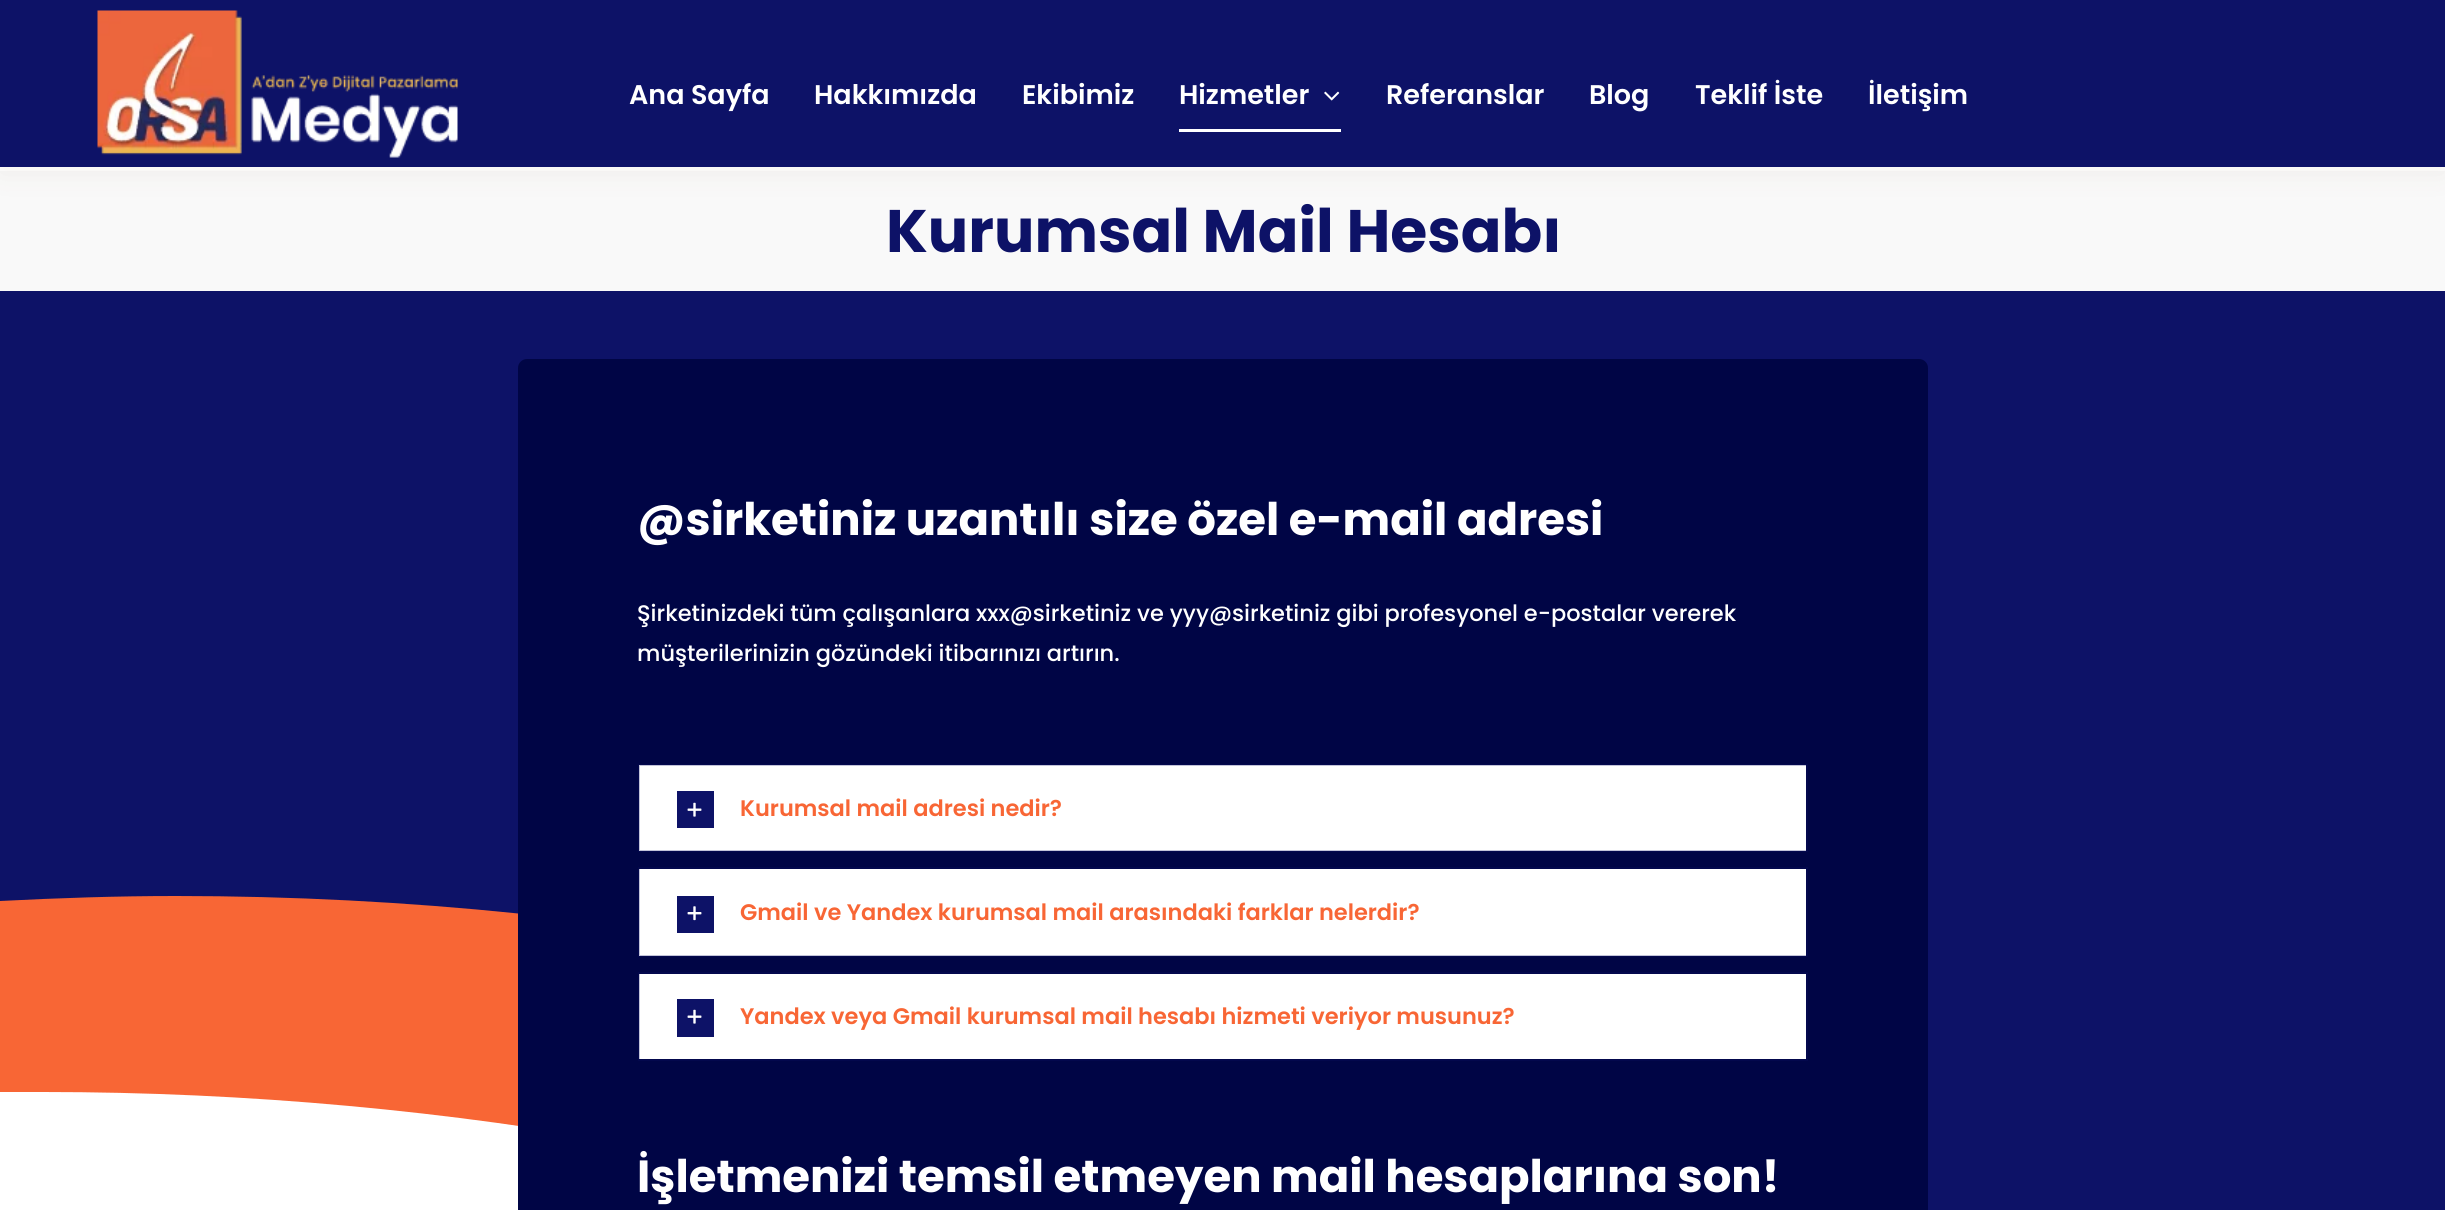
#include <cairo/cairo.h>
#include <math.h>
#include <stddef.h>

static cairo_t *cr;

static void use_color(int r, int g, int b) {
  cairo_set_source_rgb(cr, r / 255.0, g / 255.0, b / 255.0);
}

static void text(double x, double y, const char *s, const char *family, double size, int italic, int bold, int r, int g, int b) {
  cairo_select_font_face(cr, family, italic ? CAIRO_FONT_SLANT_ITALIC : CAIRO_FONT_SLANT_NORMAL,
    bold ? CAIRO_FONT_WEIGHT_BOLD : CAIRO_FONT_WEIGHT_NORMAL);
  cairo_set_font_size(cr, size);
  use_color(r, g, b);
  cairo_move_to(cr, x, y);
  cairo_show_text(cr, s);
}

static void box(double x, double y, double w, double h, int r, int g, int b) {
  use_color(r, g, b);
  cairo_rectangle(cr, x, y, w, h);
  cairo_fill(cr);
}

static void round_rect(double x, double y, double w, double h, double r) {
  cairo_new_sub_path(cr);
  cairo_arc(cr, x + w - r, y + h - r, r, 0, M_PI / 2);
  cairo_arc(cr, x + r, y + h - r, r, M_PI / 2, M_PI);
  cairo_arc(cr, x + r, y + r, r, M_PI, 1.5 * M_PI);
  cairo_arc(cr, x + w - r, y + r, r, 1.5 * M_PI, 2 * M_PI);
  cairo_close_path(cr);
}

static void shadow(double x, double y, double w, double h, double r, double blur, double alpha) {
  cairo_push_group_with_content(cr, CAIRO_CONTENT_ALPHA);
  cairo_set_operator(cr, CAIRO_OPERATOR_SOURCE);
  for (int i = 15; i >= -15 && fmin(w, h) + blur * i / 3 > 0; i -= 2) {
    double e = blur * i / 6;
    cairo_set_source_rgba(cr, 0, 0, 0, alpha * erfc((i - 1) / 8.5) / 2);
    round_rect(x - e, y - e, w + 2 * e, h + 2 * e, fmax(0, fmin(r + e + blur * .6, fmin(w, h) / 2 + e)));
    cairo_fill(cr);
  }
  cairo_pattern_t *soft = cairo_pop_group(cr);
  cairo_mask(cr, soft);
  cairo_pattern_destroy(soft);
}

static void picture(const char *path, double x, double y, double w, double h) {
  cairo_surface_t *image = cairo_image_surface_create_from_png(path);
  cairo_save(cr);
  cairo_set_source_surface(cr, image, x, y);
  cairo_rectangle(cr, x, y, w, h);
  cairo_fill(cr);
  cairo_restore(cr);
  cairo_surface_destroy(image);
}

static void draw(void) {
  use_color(255, 255, 255);
  cairo_paint(cr);
  box(0, 171, 2445, 120, 249, 249, 249);
  use_color(91, 45, 0);
  shadow(0, 8, 2445, 166, 0, 15, 0.06);
  box(0, 0, 2445, 167, 13, 18, 103);
  picture("img_01.png", 97, 10, 361, 148);
  picture("img_02.png", 1324, 91, 16, 10);
  box(1179, 129, 162, 3, 255, 255, 255);
  box(0, 291, 2445, 919, 13, 18, 103);
  use_color(248, 102, 53);
  cairo_new_path(cr);
  cairo_move_to(cr, 176, 896);
  cairo_curve_to(cr, 117, 896, 58, 898, 0, 901);
  cairo_line_to(cr, 0, 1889);
  cairo_line_to(cr, 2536, 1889);
  cairo_curve_to(cr, 1937, 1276, 1101, 896, 176, 896);
  cairo_close_path(cr);
  cairo_fill(cr);
  use_color(255, 255, 255);
  cairo_new_path(cr);
  cairo_move_to(cr, 43, 1092);
  cairo_line_to(cr, -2, 1092);
  cairo_line_to(cr, -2, 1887);
  cairo_line_to(cr, 2193, 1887);
  cairo_curve_to(cr, 1615, 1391, 864, 1092, 43, 1092);
  cairo_close_path(cr);
  cairo_fill(cr);
  use_color(0, 5, 69);
  round_rect(518, 359, 1410, 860, 9);
  cairo_fill(cr);
  box(639, 765, 1167, 86, 255, 255, 255);
  cairo_rectangle(cr, 639, 765, 1168, 86);
  cairo_set_source_rgba(cr, 0.051, 0.071, 0.404, 0.25);
  cairo_stroke(cr);
  box(677, 791, 37, 37, 13, 18, 103);
  picture("img_03.png", 687, 802, 15, 15);
  box(639, 869, 1167, 87, 255, 255, 255);
  cairo_rectangle(cr, 639, 868, 1168, 88);
  cairo_set_source_rgba(cr, 0.051, 0.071, 0.404, 0.25);
  cairo_stroke(cr);
  box(677, 896, 37, 37, 13, 18, 103);
  picture("img_04.png", 687, 906, 15, 15);
  box(639, 974, 1167, 85, 255, 255, 255);
  cairo_rectangle(cr, 639, 973, 1168, 87);
  cairo_set_source_rgba(cr, 0.051, 0.071, 0.404, 0.25);
  cairo_stroke(cr);
  box(677, 999, 37, 38, 13, 18, 103);
  picture("img_03.png", 687, 1009, 15, 15);
  text(629, 104, "Ana Sayfa", "Poppins SemiBold", 27, 0, 0, 255, 255, 255);
  text(814, 104, "Hakkımızda", "Poppins SemiBold", 27, 0, 0, 255, 255, 255);
  text(1022, 104, "Ekibimiz", "Poppins SemiBold", 27, 0, 0, 255, 255, 255);
  text(1179, 104, "Hizmetler", "Poppins SemiBold", 27, 0, 0, 255, 255, 255);
  text(1386, 104, "Referanslar", "Poppins SemiBold", 27, 0, 0, 255, 255, 255);
  text(1589, 104, "Blog", "Poppins SemiBold", 27, 0, 0, 255, 255, 255);
  text(1695, 104, "Teklif İste", "Poppins SemiBold", 27, 0, 0, 255, 255, 255);
  text(1868, 104, "İletişim", "Poppins SemiBold", 27, 0, 0, 255, 255, 255);
  text(886, 252, "Kurumsal Mail Hesabı", "Poppins", 60, 0, 1, 13, 18, 103);
  text(637, 535, "@sirketiniz uzantılı size özel e-mail adresi", "Poppins", 45, 0, 1, 255, 255, 255);
  text(637, 621, "Şirketinizdeki tüm çalışanlara xxx@sirketiniz ve yyy@sirketiniz gibi profesyonel e-postalar vererek", "Poppins Medium", 22.5, 0, 0, 255, 255, 255);
  text(637, 661, "müşterilerinizin gözündeki itibarınızı artırın.", "Poppins Medium", 22.5, 0, 0, 255, 255, 255);
  text(740, 816, "Kurumsal mail adresi nedir?", "Poppins SemiBold", 22.5, 0, 0, 248, 102, 53);
  text(740, 920, "Gmail ve Yandex kurumsal mail arasındaki farklar nelerdir?", "Poppins SemiBold", 22.5, 0, 0, 248, 102, 53);
  text(740, 1024, "Yandex veya Gmail kurumsal mail hesabı hizmeti veriyor musunuz?", "Poppins SemiBold", 22.5, 0, 0, 248, 102, 53);
  text(637, 1192, "İşletmenizi temsil etmeyen mail hesaplarına son!", "Poppins", 45, 0, 1, 255, 255, 255);
}

int main(void) {
  cairo_surface_t *surface = cairo_image_surface_create(CAIRO_FORMAT_RGB24, 2445, 1210);
  cr = cairo_create(surface);
  cairo_font_options_t *options = cairo_font_options_create();
  cairo_font_options_set_hint_metrics(options, CAIRO_HINT_METRICS_OFF);
  cairo_font_options_set_hint_style(options, CAIRO_HINT_STYLE_NONE);
  cairo_set_font_options(cr, options);
  cairo_set_miter_limit(cr, 4);
  draw();
  cairo_surface_write_to_png(surface, "out.png");
  cairo_font_options_destroy(options);
  cairo_destroy(cr);
  cairo_surface_destroy(surface);
  return 0;
}
